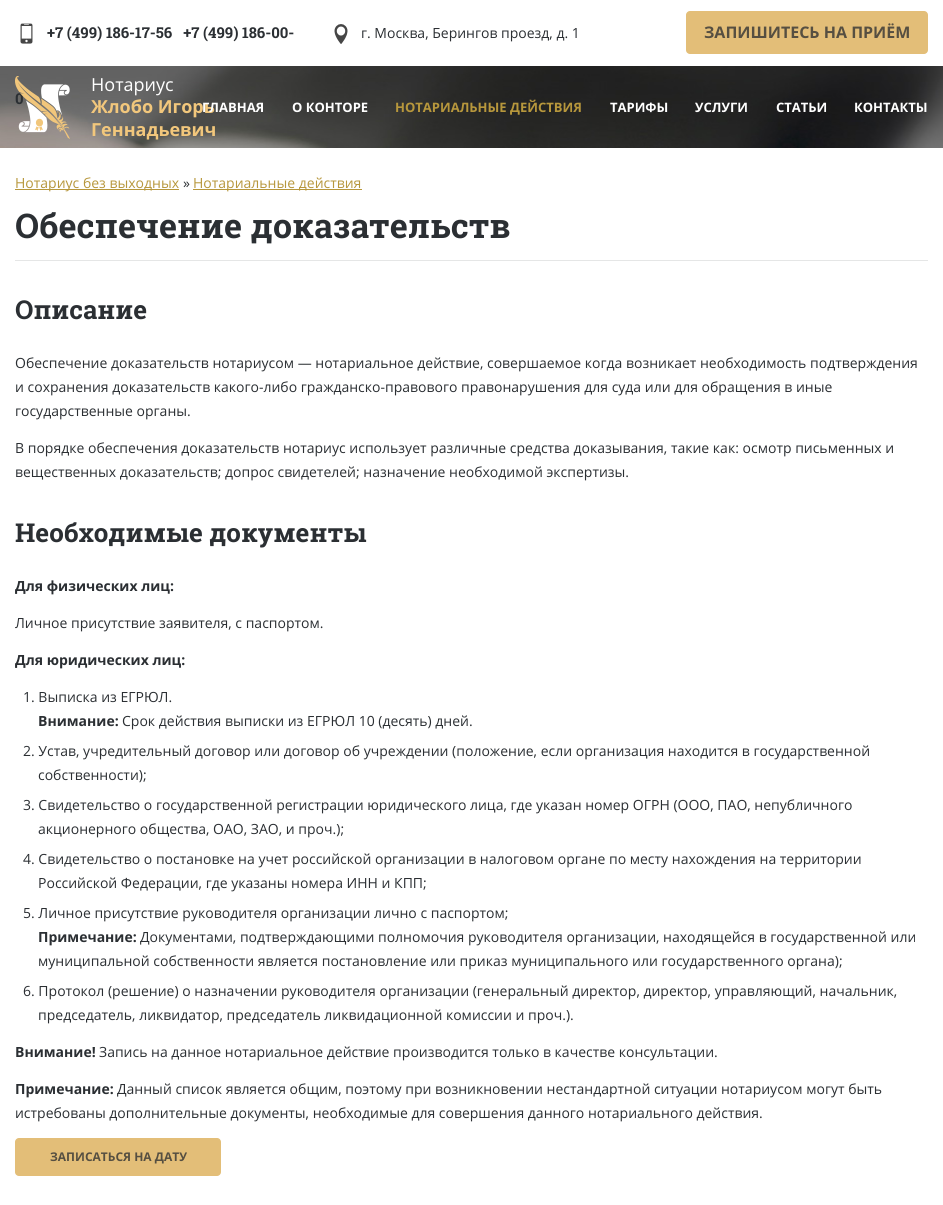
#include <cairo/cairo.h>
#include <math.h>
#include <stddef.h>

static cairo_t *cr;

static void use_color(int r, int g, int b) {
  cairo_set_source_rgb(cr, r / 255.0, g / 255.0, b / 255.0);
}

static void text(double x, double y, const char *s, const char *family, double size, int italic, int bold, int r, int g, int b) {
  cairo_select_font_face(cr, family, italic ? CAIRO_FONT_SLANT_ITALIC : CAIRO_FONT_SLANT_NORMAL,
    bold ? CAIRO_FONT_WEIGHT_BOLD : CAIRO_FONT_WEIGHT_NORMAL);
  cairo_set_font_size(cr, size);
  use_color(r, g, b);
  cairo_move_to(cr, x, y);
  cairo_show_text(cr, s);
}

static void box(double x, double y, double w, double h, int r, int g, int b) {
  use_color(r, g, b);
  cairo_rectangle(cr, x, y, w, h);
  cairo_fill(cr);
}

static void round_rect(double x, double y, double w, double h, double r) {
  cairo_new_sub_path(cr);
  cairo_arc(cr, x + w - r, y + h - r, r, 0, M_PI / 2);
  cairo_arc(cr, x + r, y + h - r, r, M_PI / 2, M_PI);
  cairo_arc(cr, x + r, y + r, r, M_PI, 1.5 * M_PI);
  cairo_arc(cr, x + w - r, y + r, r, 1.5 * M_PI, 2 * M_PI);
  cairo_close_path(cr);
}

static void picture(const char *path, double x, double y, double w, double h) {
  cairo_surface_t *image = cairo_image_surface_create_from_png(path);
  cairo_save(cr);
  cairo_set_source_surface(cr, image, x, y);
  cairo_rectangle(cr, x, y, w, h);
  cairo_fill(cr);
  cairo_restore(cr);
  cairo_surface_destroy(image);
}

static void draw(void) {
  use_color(255, 255, 255);
  cairo_paint(cr);
  picture("img_01.png", 20, 23, 13, 21);
  picture("img_02.png", 334, 24, 14, 20);
  use_color(227, 190, 120);
  round_rect(686, 11, 242, 43, 4);
  cairo_fill(cr);
  picture("img_03.png", 0, 66, 943, 82);
  box(15, 189, 164, 1, 183, 151, 60);
  box(193, 189, 169, 1, 183, 151, 60);
  box(15, 260, 913, 1, 229, 230, 230);
  use_color(227, 190, 120);
  round_rect(15, 1138, 206, 38, 4);
  cairo_fill(cr);
  text(47, 38, "+7 (499) 186-17-56   +7 (499) 186-00-", "Roboto Slab", 15, 0, 1, 43, 47, 51);
  text(15, 104, "0", "Roboto Slab", 15, 0, 1, 43, 47, 51);
  text(361, 38, "г. Москва, Берингов проезд, д. 1", "Open Sans", 14, 0, 0, 43, 47, 51);
  text(704, 38, "ЗАПИШИТЕСЬ НА ПРИЁМ", "Open Sans", 16, 0, 1, 86, 79, 65);
  picture("img_04.png", 15, 76, 55, 63);
  text(91, 91, "Нотариус", "Open Sans", 18, 0, 0, 255, 255, 255);
  text(91, 113, "Жлобо Игорь", "Open Sans", 18, 0, 1, 242, 199, 124);
  text(91, 136, "Геннадьевич", "Open Sans", 18, 0, 1, 242, 199, 124);
  text(202, 112, "ГЛАВНАЯ", "Open Sans", 13, 0, 1, 255, 255, 255);
  text(292, 112, "О КОНТОРЕ", "Open Sans", 13, 0, 1, 255, 255, 255);
  text(395, 112, "НОТАРИАЛЬНЫЕ ДЕЙСТВИЯ", "Open Sans", 13, 0, 1, 183, 151, 60);
  text(610, 112, "ТАРИФЫ", "Open Sans", 13, 0, 1, 255, 255, 255);
  text(695, 112, "УСЛУГИ", "Open Sans", 13, 0, 1, 255, 255, 255);
  text(776, 112, "СТАТЬИ", "Open Sans", 13, 0, 1, 255, 255, 255);
  text(854, 112, "КОНТАКТЫ", "Open Sans", 13, 0, 1, 255, 255, 255);
  text(15, 188, "Нотариус без выходных", "Open Sans", 14, 0, 0, 183, 151, 60);
  text(183, 188, "»", "Open Sans", 14, 0, 0, 43, 47, 51);
  text(193, 188, "Нотариальные действия", "Open Sans", 14, 0, 0, 183, 151, 60);
  text(15, 238, "Обеспечение доказательств", "Roboto Slab", 34, 0, 1, 43, 47, 51);
  text(15, 319, "Описание", "Roboto Slab", 26, 0, 1, 43, 47, 51);
  text(15, 368, "Обеспечение доказательств нотариусом — нотариальное действие, совершаемое когда возникает необходимость подтверждения", "Open Sans", 14, 0, 0, 43, 47, 51);
  text(15, 392, "и сохранения доказательств какого-либо гражданско-правового правонарушения для суда или для обращения в иные", "Open Sans", 14, 0, 0, 43, 47, 51);
  text(15, 416, "государственные органы.", "Open Sans", 14, 0, 0, 43, 47, 51);
  text(15, 453, "В порядке обеспечения доказательств нотариус использует различные средства доказывания, такие как: осмотр письменных и", "Open Sans", 14, 0, 0, 43, 47, 51);
  text(15, 477, "вещественных доказательств; допрос свидетелей; назначение необходимой экспертизы.", "Open Sans", 14, 0, 0, 43, 47, 51);
  text(15, 542, "Необходимые документы", "Roboto Slab", 26, 0, 1, 43, 47, 51);
  text(15, 591, "Для физических лиц:", "Open Sans", 14, 0, 1, 43, 47, 51);
  text(15, 628, "Личное присутствие заявителя, с паспортом.", "Open Sans", 14, 0, 0, 43, 47, 51);
  text(15, 665, "Для юридических лиц:", "Open Sans", 14, 0, 1, 43, 47, 51);
  text(23, 702, "1. Выписка из ЕГРЮЛ.", "Open Sans", 14, 0, 0, 43, 47, 51);
  text(38, 726, "Внимание:", "Open Sans", 14, 0, 1, 43, 47, 51);
  text(122, 726, "Срок действия выписки из ЕГРЮЛ 10 (десять) дней.", "Open Sans", 14, 0, 0, 43, 47, 51);
  text(23, 756, "2. Устав, учредительный договор или договор об учреждении (положение, если организация находится в государственной", "Open Sans", 14, 0, 0, 43, 47, 51);
  text(38, 780, "собственности);", "Open Sans", 14, 0, 0, 43, 47, 51);
  text(23, 810, "3. Свидетельство о государственной регистрации юридического лица, где указан номер ОГРН (ООО, ПАО, непубличного", "Open Sans", 14, 0, 0, 43, 47, 51);
  text(38, 834, "акционерного общества, ОАО, ЗАО, и проч.);", "Open Sans", 14, 0, 0, 43, 47, 51);
  text(23, 864, "4. Свидетельство о постановке на учет российской организации в налоговом органе по месту нахождения на территории", "Open Sans", 14, 0, 0, 43, 47, 51);
  text(38, 888, "Российской Федерации, где указаны номера ИНН и КПП;", "Open Sans", 14, 0, 0, 43, 47, 51);
  text(23, 918, "5. Личное присутствие руководителя организации лично с паспортом;", "Open Sans", 14, 0, 0, 43, 47, 51);
  text(38, 942, "Примечание:", "Open Sans", 14, 0, 1, 43, 47, 51);
  text(140, 942, "Документами, подтверждающими полномочия руководителя организации, находящейся в государственной или", "Open Sans", 14, 0, 0, 43, 47, 51);
  text(38, 966, "муниципальной собственности является постановление или приказ муниципального или государственного органа);", "Open Sans", 14, 0, 0, 43, 47, 51);
  text(23, 996, "6. Протокол (решение) о назначении руководителя организации (генеральный директор, директор, управляющий, начальник,", "Open Sans", 14, 0, 0, 43, 47, 51);
  text(38, 1020, "председатель, ликвидатор, председатель ликвидационной комиссии и проч.).", "Open Sans", 14, 0, 0, 43, 47, 51);
  text(15, 1057, "Внимание!", "Open Sans", 14, 0, 1, 43, 47, 51);
  text(99, 1057, "Запись на данное нотариальное действие производится только в качестве консультации.", "Open Sans", 14, 0, 0, 43, 47, 51);
  text(15, 1094, "Примечание:", "Open Sans", 14, 0, 1, 43, 47, 51);
  text(117, 1094, "Данный список является общим, поэтому при возникновении нестандартной ситуации нотариусом могут быть", "Open Sans", 14, 0, 0, 43, 47, 51);
  text(15, 1118, "истребованы дополнительные документы, необходимые для совершения данного нотариального действия.", "Open Sans", 14, 0, 0, 43, 47, 51);
  text(50, 1161, "ЗАПИСАТЬСЯ НА ДАТУ", "Open Sans", 12, 0, 1, 86, 79, 65);
}

int main(void) {
  cairo_surface_t *surface = cairo_image_surface_create(CAIRO_FORMAT_RGB24, 943, 1205);
  cr = cairo_create(surface);
  cairo_font_options_t *options = cairo_font_options_create();
  cairo_font_options_set_hint_metrics(options, CAIRO_HINT_METRICS_OFF);
  cairo_font_options_set_hint_style(options, CAIRO_HINT_STYLE_NONE);
  cairo_set_font_options(cr, options);
  cairo_set_miter_limit(cr, 4);
  draw();
  cairo_surface_write_to_png(surface, "out.png");
  cairo_font_options_destroy(options);
  cairo_destroy(cr);
  cairo_surface_destroy(surface);
  return 0;
}
